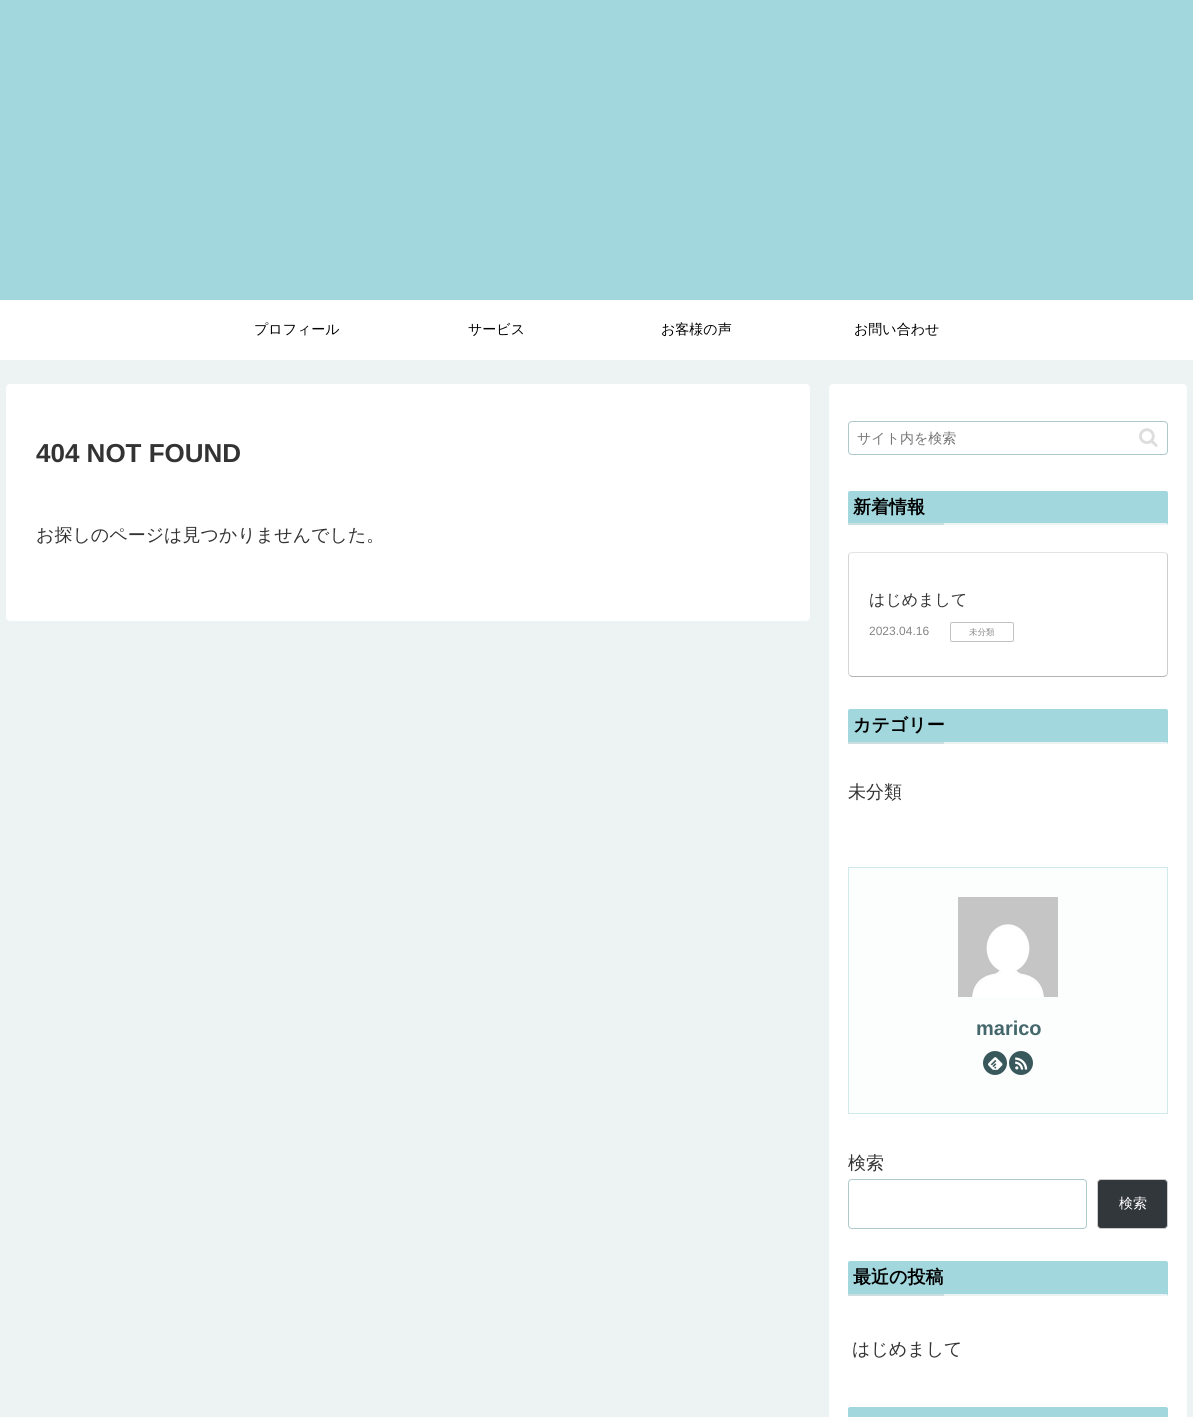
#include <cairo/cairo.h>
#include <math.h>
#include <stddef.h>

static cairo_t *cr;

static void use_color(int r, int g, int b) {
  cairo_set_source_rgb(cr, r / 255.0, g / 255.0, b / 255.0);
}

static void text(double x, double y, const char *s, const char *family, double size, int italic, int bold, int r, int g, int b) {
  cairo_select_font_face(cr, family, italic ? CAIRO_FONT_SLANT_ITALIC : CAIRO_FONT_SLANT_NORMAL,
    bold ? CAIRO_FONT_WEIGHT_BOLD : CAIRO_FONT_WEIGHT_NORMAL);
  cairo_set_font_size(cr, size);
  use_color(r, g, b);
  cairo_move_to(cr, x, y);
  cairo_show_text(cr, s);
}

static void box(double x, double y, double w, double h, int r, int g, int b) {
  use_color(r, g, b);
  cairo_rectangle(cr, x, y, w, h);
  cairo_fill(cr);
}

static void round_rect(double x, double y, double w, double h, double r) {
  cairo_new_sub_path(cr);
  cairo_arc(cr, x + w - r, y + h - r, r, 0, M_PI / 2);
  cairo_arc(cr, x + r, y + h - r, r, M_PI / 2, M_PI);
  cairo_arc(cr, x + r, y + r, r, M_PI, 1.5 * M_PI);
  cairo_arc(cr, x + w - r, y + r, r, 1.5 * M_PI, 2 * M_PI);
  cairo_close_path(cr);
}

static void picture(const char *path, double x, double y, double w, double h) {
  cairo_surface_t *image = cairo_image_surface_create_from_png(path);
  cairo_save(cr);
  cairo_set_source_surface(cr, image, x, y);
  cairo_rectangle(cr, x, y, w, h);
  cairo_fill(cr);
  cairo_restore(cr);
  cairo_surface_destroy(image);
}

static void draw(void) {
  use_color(237, 243, 243);
  cairo_paint(cr);
  box(0, 0, 1193, 300, 162, 215, 221);
  box(0, 300, 1193, 60, 255, 255, 255);
  round_rect(6, 384, 804, 237, 4);
  cairo_fill(cr);
  round_rect(829, 384, 358, 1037, 4);
  cairo_fill(cr);
  round_rect(848.5, 421.5, 319, 33, 3.5);
  use_color(174, 201, 204);
  cairo_set_line_width(cr, 1);
  cairo_stroke(cr);
  picture("img_01.png", 1139, 428, 19, 19);
  use_color(162, 215, 221);
  round_rect(848, 491, 320, 34, 2);
  cairo_fill(cr);
  box(944, 523, 223, 2, 237, 243, 243);
  box(848, 523, 96, 2, 205, 222, 224);
  cairo_new_path(cr);
  cairo_move_to(cr, 849.5, 553.5);
  cairo_line_to(cr, 852, 552.5);
  cairo_line_to(cr, 1164, 552.5);
  cairo_line_to(cr, 1166.5, 553.5);
  use_color(227, 227, 227);
  cairo_stroke(cr);
  cairo_new_path(cr);
  cairo_move_to(cr, 1166.5, 553.5);
  cairo_curve_to(cr, 1167, 554, 1167.5, 555, 1167.5, 556);
  cairo_line_to(cr, 1167.5, 673);
  cairo_curve_to(cr, 1167.5, 674, 1167, 675, 1166.5, 675.5);
  use_color(206, 206, 206);
  cairo_stroke(cr);
  cairo_new_path(cr);
  cairo_move_to(cr, 1166.5, 675.5);
  cairo_line_to(cr, 1164, 676.5);
  cairo_line_to(cr, 852, 676.5);
  cairo_line_to(cr, 849.5, 675.5);
  use_color(180, 180, 180);
  cairo_stroke(cr);
  cairo_new_path(cr);
  cairo_move_to(cr, 849.5, 675.5);
  cairo_curve_to(cr, 849, 675, 848.5, 674, 848.5, 673);
  cairo_line_to(cr, 848.5, 556);
  cairo_curve_to(cr, 848.5, 555, 849, 554, 849.5, 553.5);
  use_color(214, 214, 214);
  cairo_stroke(cr);
  round_rect(950.5, 622.5, 63, 19, 1.5);
  use_color(194, 194, 194);
  cairo_stroke(cr);
  use_color(162, 215, 221);
  round_rect(848, 709, 320, 35, 2);
  cairo_fill(cr);
  box(944, 742, 223, 2, 237, 243, 243);
  box(848, 742, 96, 2, 205, 222, 224);
  use_color(252, 253, 253);
  cairo_rectangle(cr, 848.5, 867.5, 319, 246);
  cairo_fill_preserve(cr);
  use_color(207, 234, 237);
  cairo_stroke(cr);
  picture("img_02.png", 958, 897, 100, 100);
  use_color(57, 88, 91);
  cairo_arc(cr, 995, 1063, 12, 0, 2 * M_PI);
  cairo_fill(cr);
  picture("img_03.png", 988, 1057, 15, 13);
  cairo_arc(cr, 1021, 1063, 12, 0, 2 * M_PI);
  cairo_fill(cr);
  picture("img_04.png", 1015, 1057, 13, 13);
  round_rect(848.5, 1179.5, 238, 49, 3.5);
  use_color(174, 201, 204);
  cairo_stroke(cr);
  use_color(50, 55, 60);
  round_rect(1097.5, 1179.5, 70, 49, 3.5);
  cairo_fill_preserve(cr);
  use_color(204, 204, 204);
  cairo_stroke(cr);
  use_color(162, 215, 221);
  round_rect(848, 1261, 320, 35, 2);
  cairo_fill(cr);
  box(944, 1294, 223, 2, 237, 243, 243);
  box(848, 1294, 96, 2, 205, 222, 224);
  use_color(162, 215, 221);
  round_rect(848, 1407, 320, 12, 2);
  cairo_fill(cr);
  text(254, 334, "プロフィール", "WenQuanYi Zen Hei Medium", 14, 0, 0, 0, 0, 0);
  text(468, 334, "サービス", "WenQuanYi Zen Hei Medium", 14, 0, 0, 0, 0, 0);
  text(661, 334, "お客様の声", "WenQuanYi Zen Hei Medium", 14, 0, 0, 0, 0, 0);
  text(854, 334, "お問い合わせ", "WenQuanYi Zen Hei Medium", 14, 0, 0, 0, 0, 0);
  text(36, 462, "404 NOT FOUND", "Liberation Sans", 26, 0, 1, 51, 51, 51);
  text(36, 541, "お探しのページは見つかりませんでした。", "WenQuanYi Zen Hei Medium", 18, 0, 0, 51, 51, 51);
  text(857, 443, "サイト内を検索", "WenQuanYi Zen Hei Medium", 14, 0, 0, 117, 117, 117);
  text(853, 513, "新着情報", "WenQuanYi Zen Hei", 18, 0, 1, 0, 0, 0);
  text(869, 605, "はじめまして", "WenQuanYi Zen Hei Medium", 16, 0, 0, 51, 51, 51);
  text(869, 635, "2023.04.16", "Liberation Sans", 12, 0, 0, 133, 133, 133);
  text(969, 635, "未分類", "WenQuanYi Zen Hei Medium", 8.5, 0, 0, 133, 133, 133);
  text(853, 731, "カテゴリー", "WenQuanYi Zen Hei", 18, 0, 1, 0, 0, 0);
  text(848, 798, "未分類", "WenQuanYi Zen Hei Medium", 18, 0, 0, 51, 51, 51);
  text(976, 1035, "marico", "Liberation Sans", 20, 0, 1, 67, 103, 107);
  text(848, 1169, "検索", "WenQuanYi Zen Hei Medium", 18, 0, 0, 51, 51, 51);
  text(1119, 1208, "検索", "WenQuanYi Zen Hei Medium", 14, 0, 0, 255, 255, 255);
  text(853, 1283, "最近の投稿", "WenQuanYi Zen Hei", 18, 0, 1, 0, 0, 0);
  text(852, 1355, "はじめまして", "WenQuanYi Zen Hei Medium", 18, 0, 0, 51, 51, 51);
}

int main(void) {
  cairo_surface_t *surface = cairo_image_surface_create(CAIRO_FORMAT_RGB24, 1193, 1417);
  cr = cairo_create(surface);
  cairo_font_options_t *options = cairo_font_options_create();
  cairo_font_options_set_hint_metrics(options, CAIRO_HINT_METRICS_OFF);
  cairo_font_options_set_hint_style(options, CAIRO_HINT_STYLE_NONE);
  cairo_set_font_options(cr, options);
  cairo_set_miter_limit(cr, 4);
  draw();
  cairo_surface_write_to_png(surface, "out.png");
  cairo_font_options_destroy(options);
  cairo_destroy(cr);
  cairo_surface_destroy(surface);
  return 0;
}
